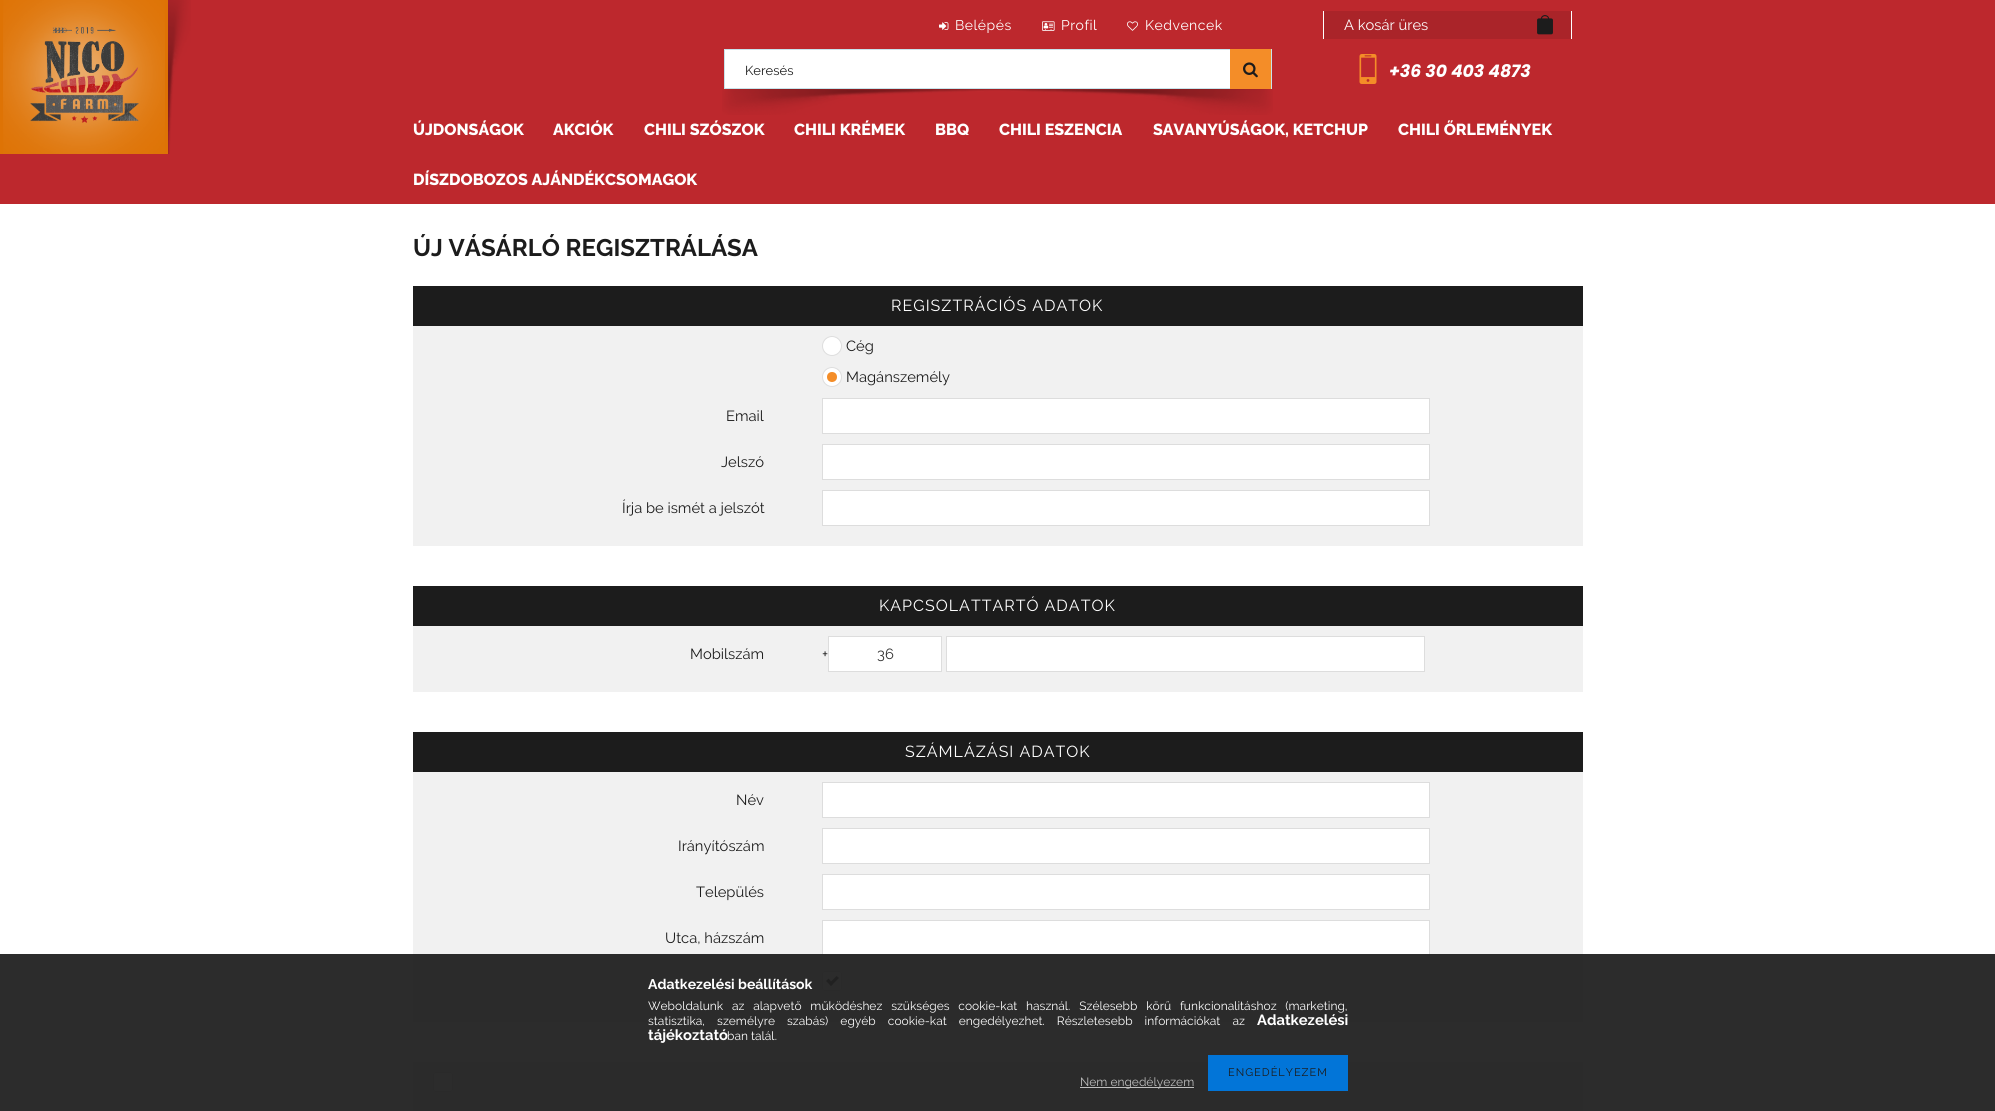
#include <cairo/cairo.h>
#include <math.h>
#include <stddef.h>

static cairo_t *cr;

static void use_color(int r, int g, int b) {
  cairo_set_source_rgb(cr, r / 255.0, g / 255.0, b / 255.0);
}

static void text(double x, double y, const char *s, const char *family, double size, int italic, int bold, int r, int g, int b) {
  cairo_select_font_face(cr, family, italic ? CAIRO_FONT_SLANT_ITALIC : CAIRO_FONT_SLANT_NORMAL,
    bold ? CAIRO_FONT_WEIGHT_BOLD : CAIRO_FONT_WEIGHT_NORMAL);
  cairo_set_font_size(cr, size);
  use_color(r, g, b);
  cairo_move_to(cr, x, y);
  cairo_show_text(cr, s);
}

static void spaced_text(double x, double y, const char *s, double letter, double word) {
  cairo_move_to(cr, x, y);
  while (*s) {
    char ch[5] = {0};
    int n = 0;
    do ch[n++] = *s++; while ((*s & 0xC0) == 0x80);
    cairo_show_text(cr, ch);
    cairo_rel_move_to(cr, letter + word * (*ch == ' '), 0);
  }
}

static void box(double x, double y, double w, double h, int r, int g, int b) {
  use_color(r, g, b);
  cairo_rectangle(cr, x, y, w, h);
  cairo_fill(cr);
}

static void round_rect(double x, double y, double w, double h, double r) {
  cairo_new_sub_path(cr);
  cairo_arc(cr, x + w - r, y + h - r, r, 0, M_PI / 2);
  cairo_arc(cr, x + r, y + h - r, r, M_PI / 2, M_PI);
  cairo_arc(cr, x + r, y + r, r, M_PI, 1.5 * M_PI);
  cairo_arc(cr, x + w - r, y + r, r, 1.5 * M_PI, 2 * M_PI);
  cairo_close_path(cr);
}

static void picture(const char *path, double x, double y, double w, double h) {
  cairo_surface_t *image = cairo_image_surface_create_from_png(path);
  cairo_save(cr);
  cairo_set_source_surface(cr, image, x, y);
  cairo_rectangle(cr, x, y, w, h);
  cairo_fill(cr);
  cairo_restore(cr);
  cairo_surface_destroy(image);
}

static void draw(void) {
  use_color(255, 255, 255);
  cairo_paint(cr);
  box(0, 0, 1995, 204, 189, 40, 45);
  picture("img_01.png", 939, 22, 10, 8);
  picture("img_02.png", 1042, 21, 13, 10);
  picture("img_03.png", 1127, 21, 11, 10);
  box(1324, 11, 247, 28, 170, 36, 41);
  box(1571, 11, 1, 28, 255, 255, 255);
  box(1323, 11, 1, 28, 255, 255, 255);
  picture("img_04.png", 1537, 15, 16, 20);
  picture("img_05.png", 168, 0, 23, 154);
  box(0, 0, 168, 154, 222, 115, 5);
  picture("img_06.png", 3, 0, 162, 154);
  picture("img_07.png", 30, 27, 109, 96);
  picture("img_08.png", 722, 89, 551, 26);
  box(725, 50, 505, 38, 255, 255, 255);
  cairo_rectangle(cr, 724.5, 49.5, 547, 39);
  use_color(199, 227, 235);
  cairo_set_line_width(cr, 1);
  cairo_stroke(cr);
  box(1230, 49, 41, 40, 244, 141, 40);
  picture("img_09.png", 1243, 62, 15, 16);
  picture("img_10.png", 1359, 54, 18, 30);
  box(413, 326, 1170, 220, 241, 241, 241);
  box(413, 286, 1170, 40, 28, 28, 28);
  use_color(255, 255, 255);
  cairo_arc(cr, 832, 346, 9.5, 0, 2 * M_PI);
  cairo_fill_preserve(cr);
  use_color(221, 221, 221);
  cairo_stroke(cr);
  use_color(255, 255, 255);
  cairo_arc(cr, 832, 377, 9.5, 0, 2 * M_PI);
  cairo_fill_preserve(cr);
  use_color(221, 221, 221);
  cairo_stroke(cr);
  use_color(244, 141, 40);
  cairo_arc(cr, 832, 377, 5, 0, 2 * M_PI);
  cairo_fill(cr);
  use_color(255, 255, 255);
  cairo_rectangle(cr, 822.5, 398.5, 607, 35);
  cairo_fill_preserve(cr);
  use_color(221, 221, 221);
  cairo_stroke(cr);
  use_color(255, 255, 255);
  cairo_rectangle(cr, 822.5, 444.5, 607, 35);
  cairo_fill_preserve(cr);
  use_color(221, 221, 221);
  cairo_stroke(cr);
  use_color(255, 255, 255);
  cairo_rectangle(cr, 822.5, 490.5, 607, 35);
  cairo_fill_preserve(cr);
  use_color(221, 221, 221);
  cairo_stroke(cr);
  box(413, 626, 1170, 66, 241, 241, 241);
  box(413, 586, 1170, 40, 28, 28, 28);
  use_color(255, 255, 255);
  cairo_rectangle(cr, 828.5, 636.5, 113, 35);
  cairo_fill_preserve(cr);
  use_color(221, 221, 221);
  cairo_stroke(cr);
  use_color(255, 255, 255);
  cairo_rectangle(cr, 946.5, 636.5, 478, 35);
  cairo_fill_preserve(cr);
  use_color(221, 221, 221);
  cairo_stroke(cr);
  box(413, 772, 1170, 250, 241, 241, 241);
  box(413, 732, 1170, 40, 28, 28, 28);
  use_color(255, 255, 255);
  cairo_rectangle(cr, 822.5, 782.5, 607, 35);
  cairo_fill_preserve(cr);
  use_color(221, 221, 221);
  cairo_stroke(cr);
  use_color(255, 255, 255);
  cairo_rectangle(cr, 822.5, 828.5, 607, 35);
  cairo_fill_preserve(cr);
  use_color(221, 221, 221);
  cairo_stroke(cr);
  use_color(255, 255, 255);
  cairo_rectangle(cr, 822.5, 874.5, 607, 35);
  cairo_fill_preserve(cr);
  use_color(221, 221, 221);
  cairo_stroke(cr);
  use_color(255, 255, 255);
  cairo_rectangle(cr, 822.5, 920.5, 607, 35);
  cairo_fill_preserve(cr);
  use_color(221, 221, 221);
  cairo_stroke(cr);
  use_color(255, 255, 255);
  round_rect(822.5, 971.5, 19, 19, 2.5);
  cairo_fill_preserve(cr);
  use_color(221, 221, 221);
  cairo_stroke(cr);
  use_color(28, 28, 28);
  cairo_new_path(cr);
  cairo_move_to(cr, 829, 983.5);
  cairo_line_to(cr, 836.5, 976);
  cairo_line_to(cr, 839, 978);
  cairo_line_to(cr, 831, 986);
  cairo_close_path(cr);
  cairo_fill(cr);
  cairo_new_path(cr);
  cairo_move_to(cr, 826, 981);
  cairo_line_to(cr, 828.5, 978.5);
  cairo_line_to(cr, 833, 983.5);
  cairo_line_to(cr, 831, 986);
  cairo_close_path(cr);
  cairo_fill(cr);
  box(413, 1062, 1170, 49, 241, 241, 241);
  use_color(255, 255, 255);
  round_rect(433.5, 1072.5, 19, 19, 2.5);
  cairo_fill_preserve(cr);
  use_color(221, 221, 221);
  cairo_stroke(cr);
  cairo_set_source_rgba(cr, 0.133, 0.133, 0.133, 0.95);
  cairo_rectangle(cr, 0, 954, 1995, 157);
  cairo_fill(cr);
  box(1208, 1055, 140, 36, 2, 117, 216);
  box(1080, 1087, 114, 1, 192, 192, 192);
  cairo_select_font_face(cr, "Raleway", CAIRO_FONT_SLANT_NORMAL, CAIRO_FONT_WEIGHT_NORMAL);
  cairo_set_font_size(cr, 14);
  use_color(255, 255, 255);
  spaced_text(955, 30, "Belépés", 0.5, 0);
  spaced_text(1061, 30, "Profil", 0.5, 0);
  spaced_text(1145, 30, "Kedvencek", 0.5, 0);
  text(1344, 30, "A kosár üres", "Raleway", 14.75, 0, 0, 255, 255, 255);
  text(745, 75, "Keresés", "Raleway", 13, 0, 0, 28, 28, 28);
  text(1389, 77, "+36 30 403 4873", "Poppins", 17.25, 1, 1, 255, 255, 255);
  text(413, 135, "ÚJDONSÁGOK", "Raleway ExtraBold", 16, 0, 0, 255, 255, 255);
  text(553, 135, "AKCIÓK", "Raleway ExtraBold", 16, 0, 0, 255, 255, 255);
  text(644, 135, "CHILI SZÓSZOK", "Raleway ExtraBold", 16, 0, 0, 255, 255, 255);
  text(794, 135, "CHILI KRÉMEK", "Raleway ExtraBold", 16, 0, 0, 255, 255, 255);
  text(935, 135, "BBQ", "Raleway ExtraBold", 16, 0, 0, 255, 255, 255);
  text(999, 135, "CHILI ESZENCIA", "Raleway ExtraBold", 16, 0, 0, 255, 255, 255);
  text(1153, 135, "SAVANYÚSÁGOK, KETCHUP", "Raleway ExtraBold", 16, 0, 0, 255, 255, 255);
  text(1398, 135, "CHILI ŐRLEMÉNYEK", "Raleway ExtraBold", 16, 0, 0, 255, 255, 255);
  text(413, 185, "DÍSZDOBOZOS AJÁNDÉKCSOMAGOK", "Raleway ExtraBold", 16, 0, 0, 255, 255, 255);
  text(413, 256, "ÚJ VÁSÁRLÓ REGISZTRÁLÁSA", "Raleway", 24, 0, 1, 28, 28, 28);
  cairo_select_font_face(cr, "Raleway", CAIRO_FONT_SLANT_NORMAL, CAIRO_FONT_WEIGHT_NORMAL);
  cairo_set_font_size(cr, 16);
  use_color(255, 255, 255);
  spaced_text(891, 311, "REGISZTRÁCIÓS ADATOK", 1, 0);
  text(846, 351, "Cég", "Raleway", 14.75, 0, 0, 28, 28, 28);
  text(846, 382, "Magánszemély", "Raleway", 14.75, 0, 0, 28, 28, 28);
  text(726, 421, "Email", "Raleway", 14.75, 0, 0, 28, 28, 28);
  text(721, 467, "Jelszó", "Raleway", 14.75, 0, 0, 28, 28, 28);
  text(622, 513, "Írja be ismét a jelszót", "Raleway", 14.75, 0, 0, 28, 28, 28);
  cairo_set_font_size(cr, 16);
  use_color(255, 255, 255);
  spaced_text(879, 611, "KAPCSOLATTARTÓ ADATOK", 1, 0);
  text(690, 659, "Mobilszám", "Raleway", 14.75, 0, 0, 28, 28, 28);
  text(822, 659, "+", "Raleway", 14.75, 0, 0, 28, 28, 28);
  text(877, 659, "36", "Raleway", 14.75, 0, 0, 51, 51, 51);
  cairo_set_font_size(cr, 16);
  use_color(255, 255, 255);
  spaced_text(905, 757, "SZÁMLÁZÁSI ADATOK", 1, 0);
  text(736, 805, "Név", "Raleway", 14.75, 0, 0, 28, 28, 28);
  text(678, 851, "Irányítószám", "Raleway", 14.75, 0, 0, 28, 28, 28);
  text(696, 897, "Település", "Raleway", 14.75, 0, 0, 28, 28, 28);
  text(665, 943, "Utca, házszám", "Raleway", 14.75, 0, 0, 28, 28, 28);
  text(648, 989, "Adatkezelési beállítások", "Raleway", 14, 0, 1, 255, 255, 255);
  cairo_select_font_face(cr, "Raleway", CAIRO_FONT_SLANT_NORMAL, CAIRO_FONT_WEIGHT_NORMAL);
  cairo_set_font_size(cr, 12);
  spaced_text(648, 1010, "Weboldalunk az alapvető működéshez szükséges cookie-kat használ. Szélesebb körű funkcionalitáshoz (marketing,", 0, 5.75);
  spaced_text(648, 1025, "statisztika, személyre szabás) egyéb cookie-kat engedélyezhet. Részletesebb információkat az", 0, 9);
  text(1257, 1025, "Adatkezelési", "Raleway", 14.75, 0, 1, 255, 255, 255);
  text(648, 1040, "tájékoztató", "Raleway", 14.75, 0, 1, 255, 255, 255);
  text(727, 1040, "ban talál.", "Raleway", 12, 0, 0, 255, 255, 255);
  cairo_set_font_size(cr, 11);
  use_color(28, 28, 28);
  spaced_text(1228, 1076, "ENGEDÉLYEZEM", 1, 0);
  text(1080, 1086, "Nem engedélyezem", "Raleway", 12, 0, 0, 192, 192, 192);
}

int main(void) {
  cairo_surface_t *surface = cairo_image_surface_create(CAIRO_FORMAT_RGB24, 1995, 1111);
  cr = cairo_create(surface);
  cairo_font_options_t *options = cairo_font_options_create();
  cairo_font_options_set_hint_metrics(options, CAIRO_HINT_METRICS_OFF);
  cairo_font_options_set_hint_style(options, CAIRO_HINT_STYLE_NONE);
  cairo_set_font_options(cr, options);
  cairo_set_miter_limit(cr, 4);
  draw();
  cairo_surface_write_to_png(surface, "out.png");
  cairo_font_options_destroy(options);
  cairo_destroy(cr);
  cairo_surface_destroy(surface);
  return 0;
}
